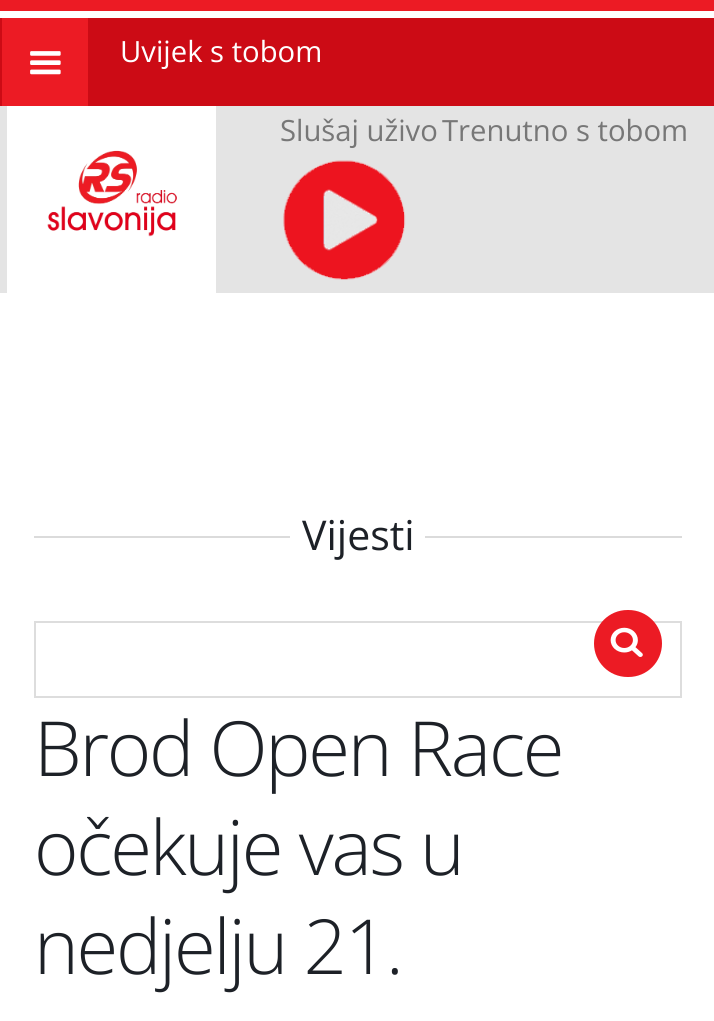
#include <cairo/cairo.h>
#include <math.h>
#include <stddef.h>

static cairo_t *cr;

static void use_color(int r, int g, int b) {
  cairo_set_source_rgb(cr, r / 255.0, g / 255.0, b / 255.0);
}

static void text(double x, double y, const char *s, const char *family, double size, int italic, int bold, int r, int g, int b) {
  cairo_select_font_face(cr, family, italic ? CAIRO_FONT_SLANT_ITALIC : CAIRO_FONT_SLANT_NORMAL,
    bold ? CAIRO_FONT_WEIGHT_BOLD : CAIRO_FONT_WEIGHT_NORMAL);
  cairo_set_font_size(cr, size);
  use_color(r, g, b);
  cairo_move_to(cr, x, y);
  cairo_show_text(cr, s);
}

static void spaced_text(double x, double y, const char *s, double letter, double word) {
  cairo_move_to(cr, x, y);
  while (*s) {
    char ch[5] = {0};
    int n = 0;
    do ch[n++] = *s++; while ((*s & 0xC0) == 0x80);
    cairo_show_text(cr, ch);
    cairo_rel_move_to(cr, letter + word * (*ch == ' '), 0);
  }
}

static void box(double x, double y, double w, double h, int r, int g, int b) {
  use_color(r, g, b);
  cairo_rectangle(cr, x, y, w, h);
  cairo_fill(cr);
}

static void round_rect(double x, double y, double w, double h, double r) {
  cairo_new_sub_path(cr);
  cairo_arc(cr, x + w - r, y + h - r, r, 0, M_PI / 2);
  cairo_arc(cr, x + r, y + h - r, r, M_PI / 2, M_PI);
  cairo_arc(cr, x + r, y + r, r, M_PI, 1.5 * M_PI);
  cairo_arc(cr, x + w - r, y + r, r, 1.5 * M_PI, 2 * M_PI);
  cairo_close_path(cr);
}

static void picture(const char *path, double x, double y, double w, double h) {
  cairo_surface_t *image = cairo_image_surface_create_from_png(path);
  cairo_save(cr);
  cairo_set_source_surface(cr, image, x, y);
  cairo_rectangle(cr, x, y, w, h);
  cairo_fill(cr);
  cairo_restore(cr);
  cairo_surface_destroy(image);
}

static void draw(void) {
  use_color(255, 255, 255);
  cairo_paint(cr);
  box(0, 0, 714, 11, 236, 27, 36);
  box(0, 18, 714, 88, 204, 11, 21);
  box(2, 18, 86, 88, 236, 27, 36);
  picture("img_01.png", 30, 51, 31, 24);
  box(0, 106, 714, 187, 228, 228, 228);
  box(7, 106, 209, 187, 255, 255, 255);
  picture("img_02.png", 47, 150, 130, 87);
  picture("img_03.png", 283, 160, 123, 120);
  box(34, 536, 648, 2, 219, 219, 219);
  box(290, 536, 135, 2, 255, 255, 255);
  cairo_rectangle(cr, 35, 622, 646, 75);
  use_color(221, 221, 221);
  cairo_stroke(cr);
  use_color(236, 27, 36);
  round_rect(594, 610, 68, 67, 33.5);
  cairo_fill(cr);
  picture("img_04.png", 610, 627, 33, 30);
  text(120, 62, "Uvijek s tobom", "Open Sans", 29.25, 0, 0, 255, 255, 255);
  text(280, 141, "Slušaj uživo", "Open Sans", 29.25, 0, 0, 119, 119, 119);
  text(442, 141, "Trenutno s tobom", "Open Sans", 29.25, 0, 0, 119, 119, 119);
  text(302, 550, "Vijesti", "Open Sans", 41, 0, 0, 29, 33, 39);
  cairo_select_font_face(cr, "Open Sans Light", CAIRO_FONT_SLANT_NORMAL, CAIRO_FONT_WEIGHT_NORMAL);
  cairo_set_font_size(cr, 76);
  spaced_text(34, 776, "Brod Open Race", -2.25, 0);
  spaced_text(34, 875, "očekuje vas u", -2.25, 0);
  spaced_text(34, 974, "nedjelju 21.", -2.25, 0);
}

int main(void) {
  cairo_surface_t *surface = cairo_image_surface_create(CAIRO_FORMAT_RGB24, 714, 1021);
  cr = cairo_create(surface);
  cairo_font_options_t *options = cairo_font_options_create();
  cairo_font_options_set_hint_metrics(options, CAIRO_HINT_METRICS_OFF);
  cairo_font_options_set_hint_style(options, CAIRO_HINT_STYLE_NONE);
  cairo_set_font_options(cr, options);
  cairo_set_miter_limit(cr, 4);
  draw();
  cairo_surface_write_to_png(surface, "out.png");
  cairo_font_options_destroy(options);
  cairo_destroy(cr);
  cairo_surface_destroy(surface);
  return 0;
}
